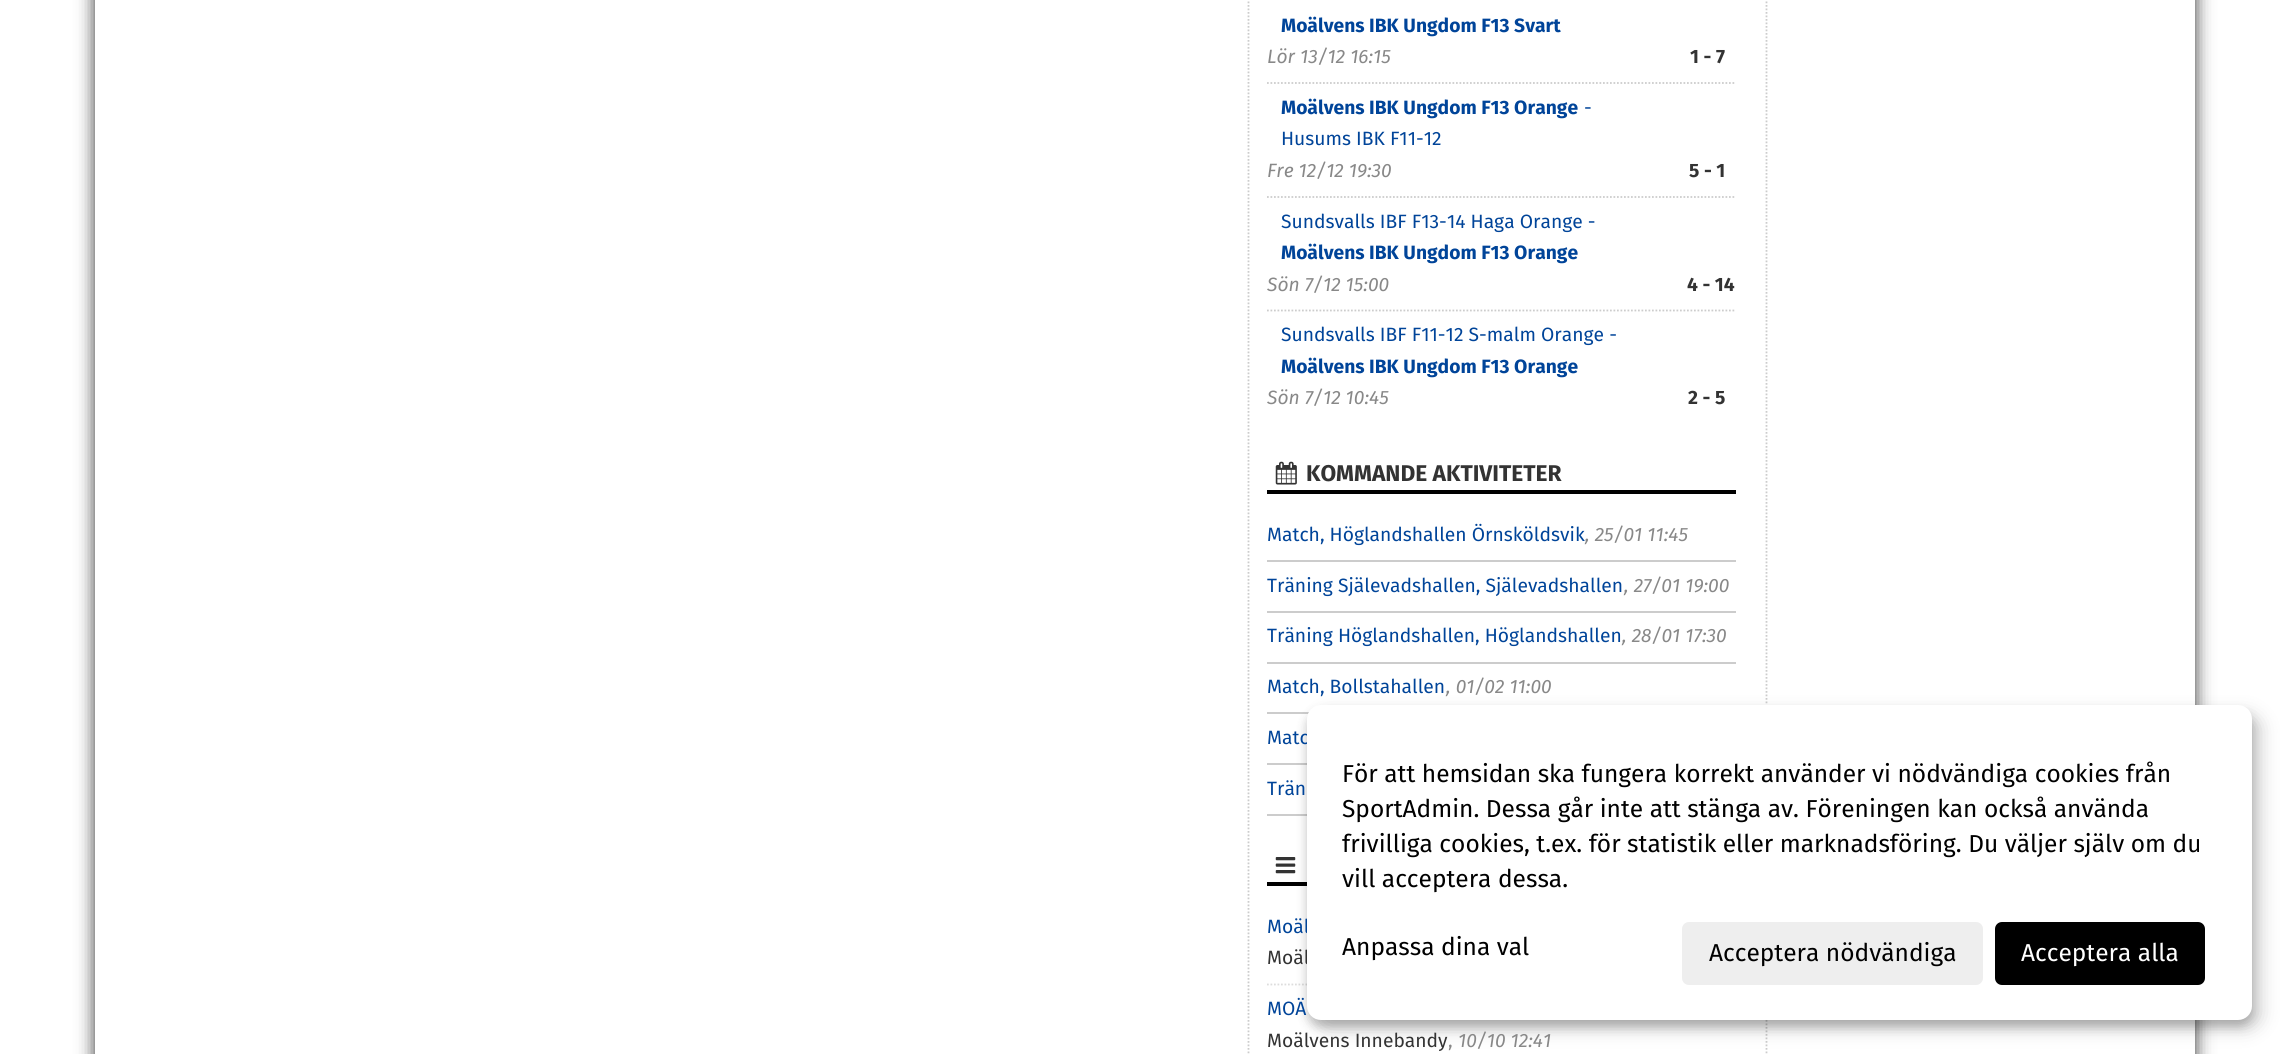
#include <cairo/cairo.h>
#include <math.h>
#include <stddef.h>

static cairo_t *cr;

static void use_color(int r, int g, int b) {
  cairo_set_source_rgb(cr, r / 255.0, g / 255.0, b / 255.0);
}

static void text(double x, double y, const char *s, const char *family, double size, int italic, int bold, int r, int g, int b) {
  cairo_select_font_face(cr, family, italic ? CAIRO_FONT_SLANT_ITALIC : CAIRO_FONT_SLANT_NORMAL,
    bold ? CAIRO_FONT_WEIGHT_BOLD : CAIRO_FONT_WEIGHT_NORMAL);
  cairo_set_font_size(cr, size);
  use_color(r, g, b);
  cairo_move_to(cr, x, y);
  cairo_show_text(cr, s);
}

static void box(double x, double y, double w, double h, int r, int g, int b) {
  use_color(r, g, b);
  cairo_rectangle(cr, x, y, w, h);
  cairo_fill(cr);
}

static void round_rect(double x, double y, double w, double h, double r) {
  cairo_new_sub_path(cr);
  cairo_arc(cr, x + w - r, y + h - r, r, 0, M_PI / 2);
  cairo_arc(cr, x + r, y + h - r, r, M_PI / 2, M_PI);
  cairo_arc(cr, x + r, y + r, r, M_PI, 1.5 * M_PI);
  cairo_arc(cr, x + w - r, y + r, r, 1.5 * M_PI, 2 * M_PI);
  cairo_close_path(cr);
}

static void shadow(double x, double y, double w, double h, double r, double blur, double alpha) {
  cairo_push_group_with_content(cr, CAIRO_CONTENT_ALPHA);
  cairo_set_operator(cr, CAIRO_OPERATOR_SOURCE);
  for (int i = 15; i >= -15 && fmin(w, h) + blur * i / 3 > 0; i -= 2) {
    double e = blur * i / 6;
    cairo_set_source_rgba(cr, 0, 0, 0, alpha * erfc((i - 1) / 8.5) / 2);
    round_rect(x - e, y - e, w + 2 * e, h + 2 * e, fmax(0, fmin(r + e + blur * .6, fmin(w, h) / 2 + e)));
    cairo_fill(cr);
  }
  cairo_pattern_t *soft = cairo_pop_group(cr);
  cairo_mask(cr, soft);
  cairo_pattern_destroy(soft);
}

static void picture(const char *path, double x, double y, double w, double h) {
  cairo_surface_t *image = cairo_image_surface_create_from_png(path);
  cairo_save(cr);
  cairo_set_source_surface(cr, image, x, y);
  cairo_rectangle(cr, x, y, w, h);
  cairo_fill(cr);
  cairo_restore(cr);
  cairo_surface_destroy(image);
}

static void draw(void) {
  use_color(255, 255, 255);
  cairo_paint(cr);
  use_color(51, 51, 51);
  shadow(95, -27, 2100, 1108, 0, 9, 1);
  box(95, 0, 2100, 1054, 255, 255, 255);
  cairo_new_path(cr);
  cairo_move_to(cr, 1248.5, -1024);
  cairo_line_to(cr, 1248.5, 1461);
  use_color(204, 204, 204);
  cairo_set_line_width(cr, 1.8);
  cairo_set_dash(cr, (double[]){1.75, 1.75}, 2, 0);
  cairo_stroke(cr);
  cairo_new_path(cr);
  cairo_move_to(cr, 1267, 83);
  cairo_line_to(cr, 1736, 83);
  cairo_stroke(cr);
  cairo_new_path(cr);
  cairo_move_to(cr, 1267, 197);
  cairo_line_to(cr, 1736, 197);
  cairo_stroke(cr);
  cairo_new_path(cr);
  cairo_move_to(cr, 1267, 310.5);
  cairo_line_to(cr, 1736, 310.5);
  cairo_stroke(cr);
  box(1267, 490, 469, 4, 0, 0, 0);
  picture("img_01.png", 1275, 461, 22, 24);
  box(1267, 560, 469, 2, 204, 204, 204);
  box(1267, 611, 469, 2, 204, 204, 204);
  box(1267, 662, 469, 2, 204, 204, 204);
  box(1267, 712, 42, 2, 204, 204, 204);
  box(1267, 763, 40, 2, 204, 204, 204);
  box(1267, 814, 40, 2, 204, 204, 204);
  box(1267, 882, 40, 4, 0, 0, 0);
  picture("img_02.png", 1275, 857, 21, 17);
  cairo_new_path(cr);
  cairo_move_to(cr, 1267, 984.5);
  cairo_line_to(cr, 1736, 984.5);
  use_color(221, 221, 221);
  cairo_stroke(cr);
  cairo_new_path(cr);
  cairo_move_to(cr, 1766.5, -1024);
  cairo_line_to(cr, 1766.5, 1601);
  use_color(204, 204, 204);
  cairo_stroke(cr);
  use_color(0, 0, 0);
  shadow(1316, 714, 945, 315, 14, 9, 0.19);
  shadow(1307, 712, 945, 315, 14, 5, 0.2);
  text(1281, 32, "Moälvens IBK Ungdom F13 Svart", "Fira Sans", 19.25, 0, 1, 0, 68, 153);
  text(1267, 63, "Lör 13/12 16:15", "Fira Sans", 19.25, 1, 0, 136, 136, 136);
  text(1690, 63, "1 - 7", "Fira Sans", 19.25, 0, 1, 51, 51, 51);
  text(1281, 114, "Moälvens IBK Ungdom F13 Orange", "Fira Sans", 19.25, 0, 1, 0, 68, 153);
  text(1584, 114, "-", "Fira Sans", 19.25, 0, 0, 0, 68, 153);
  text(1281, 145, "Husums IBK F11-12", "Fira Sans", 19.25, 0, 0, 0, 68, 153);
  text(1267, 177, "Fre 12/12 19:30", "Fira Sans", 19.25, 1, 0, 136, 136, 136);
  text(1689, 177, "5 - 1", "Fira Sans", 19.25, 0, 1, 51, 51, 51);
  text(1281, 228, "Sundsvalls IBF F13-14 Haga Orange -", "Fira Sans", 19.25, 0, 0, 0, 68, 153);
  text(1281, 259, "Moälvens IBK Ungdom F13 Orange", "Fira Sans", 19.25, 0, 1, 0, 68, 153);
  text(1267, 291, "Sön 7/12 15:00", "Fira Sans", 19.25, 1, 0, 136, 136, 136);
  text(1687, 291, "4 - 14", "Fira Sans", 19.25, 0, 1, 51, 51, 51);
  text(1281, 341, "Sundsvalls IBF F11-12 S-malm Orange -", "Fira Sans", 19.25, 0, 0, 0, 68, 153);
  text(1281, 373, "Moälvens IBK Ungdom F13 Orange", "Fira Sans", 19.25, 0, 1, 0, 68, 153);
  text(1267, 404, "Sön 7/12 10:45", "Fira Sans", 19.25, 1, 0, 136, 136, 136);
  text(1688, 404, "2 - 5", "Fira Sans", 19.25, 0, 1, 51, 51, 51);
  text(1306, 481, "KOMMANDE AKTIVITETER", "Fira Sans", 22.75, 0, 1, 51, 51, 51);
  text(1267, 541, "Match, Höglandshallen Örnsköldsvik", "Fira Sans", 19.25, 0, 0, 0, 68, 153);
  text(1585, 541, ", 25/01 11:45", "Fira Sans", 19.25, 1, 0, 136, 136, 136);
  text(1267, 592, "Träning Själevadshallen, Själevadshallen", "Fira Sans", 19.25, 0, 0, 0, 68, 153);
  text(1624, 592, ", 27/01 19:00", "Fira Sans", 19.25, 1, 0, 136, 136, 136);
  text(1267, 642, "Träning Höglandshallen, Höglandshallen", "Fira Sans", 19.25, 0, 0, 0, 68, 153);
  text(1622, 642, ", 28/01 17:30", "Fira Sans", 19.25, 1, 0, 136, 136, 136);
  text(1267, 693, "Match, Bollstahallen", "Fira Sans", 19.25, 0, 0, 0, 68, 153);
  text(1446, 693, ", 01/02 11:00", "Fira Sans", 19.25, 1, 0, 136, 136, 136);
  text(1267, 744, "Matc", "Fira Sans", 19.25, 0, 0, 0, 68, 153);
  text(1267, 795, "Trän", "Fira Sans", 19.25, 0, 0, 0, 68, 153);
  text(1267, 933, "Moäl", "Fira Sans", 19.25, 0, 0, 0, 68, 153);
  text(1267, 964, "Moäl", "Fira Sans", 19.25, 0, 0, 51, 51, 51);
  text(1267, 1015, "MOÄ", "Fira Sans", 19.25, 0, 0, 0, 68, 153);
  text(1267, 1047, "Moälvens Innebandy", "Fira Sans", 19.25, 0, 0, 51, 51, 51);
  text(1448, 1047, ",", "Fira Sans", 19.25, 0, 0, 136, 136, 136);
  text(1458, 1047, "10/10 12:41", "Fira Sans", 19.25, 1, 0, 136, 136, 136);
  use_color(255, 255, 255);
  round_rect(1307, 705, 945, 315, 14);
  cairo_fill(cr);
  text(1342, 782, "För att hemsidan ska fungera korrekt använder vi nödvändiga cookies från", "Fira Sans", 24.5, 0, 0, 0, 0, 0);
  text(1342, 817, "SportAdmin. Dessa går inte att stänga av. Föreningen kan också använda", "Fira Sans", 24.5, 0, 0, 0, 0, 0);
  text(1342, 852, "frivilliga cookies, t.ex. för statistik eller marknadsföring. Du väljer själv om du", "Fira Sans", 24.5, 0, 0, 0, 0, 0);
  text(1342, 887, "vill acceptera dessa.", "Fira Sans", 24.5, 0, 0, 0, 0, 0);
  text(1342, 955, "Anpassa dina val", "Fira Sans", 24.5, 0, 0, 0, 0, 0);
  use_color(238, 238, 238);
  round_rect(1682, 922, 301, 63, 7);
  cairo_fill(cr);
  text(1709, 961, "Acceptera nödvändiga", "Fira Sans", 24.5, 0, 0, 0, 0, 0);
  round_rect(1995, 922, 210, 63, 7);
  cairo_fill(cr);
  text(2021, 961, "Acceptera alla", "Fira Sans", 24.5, 0, 0, 255, 255, 255);
}

int main(void) {
  cairo_surface_t *surface = cairo_image_surface_create(CAIRO_FORMAT_RGB24, 2287, 1054);
  cr = cairo_create(surface);
  cairo_font_options_t *options = cairo_font_options_create();
  cairo_font_options_set_hint_metrics(options, CAIRO_HINT_METRICS_OFF);
  cairo_font_options_set_hint_style(options, CAIRO_HINT_STYLE_NONE);
  cairo_set_font_options(cr, options);
  cairo_set_miter_limit(cr, 4);
  draw();
  cairo_surface_write_to_png(surface, "out.png");
  cairo_font_options_destroy(options);
  cairo_destroy(cr);
  cairo_surface_destroy(surface);
  return 0;
}
